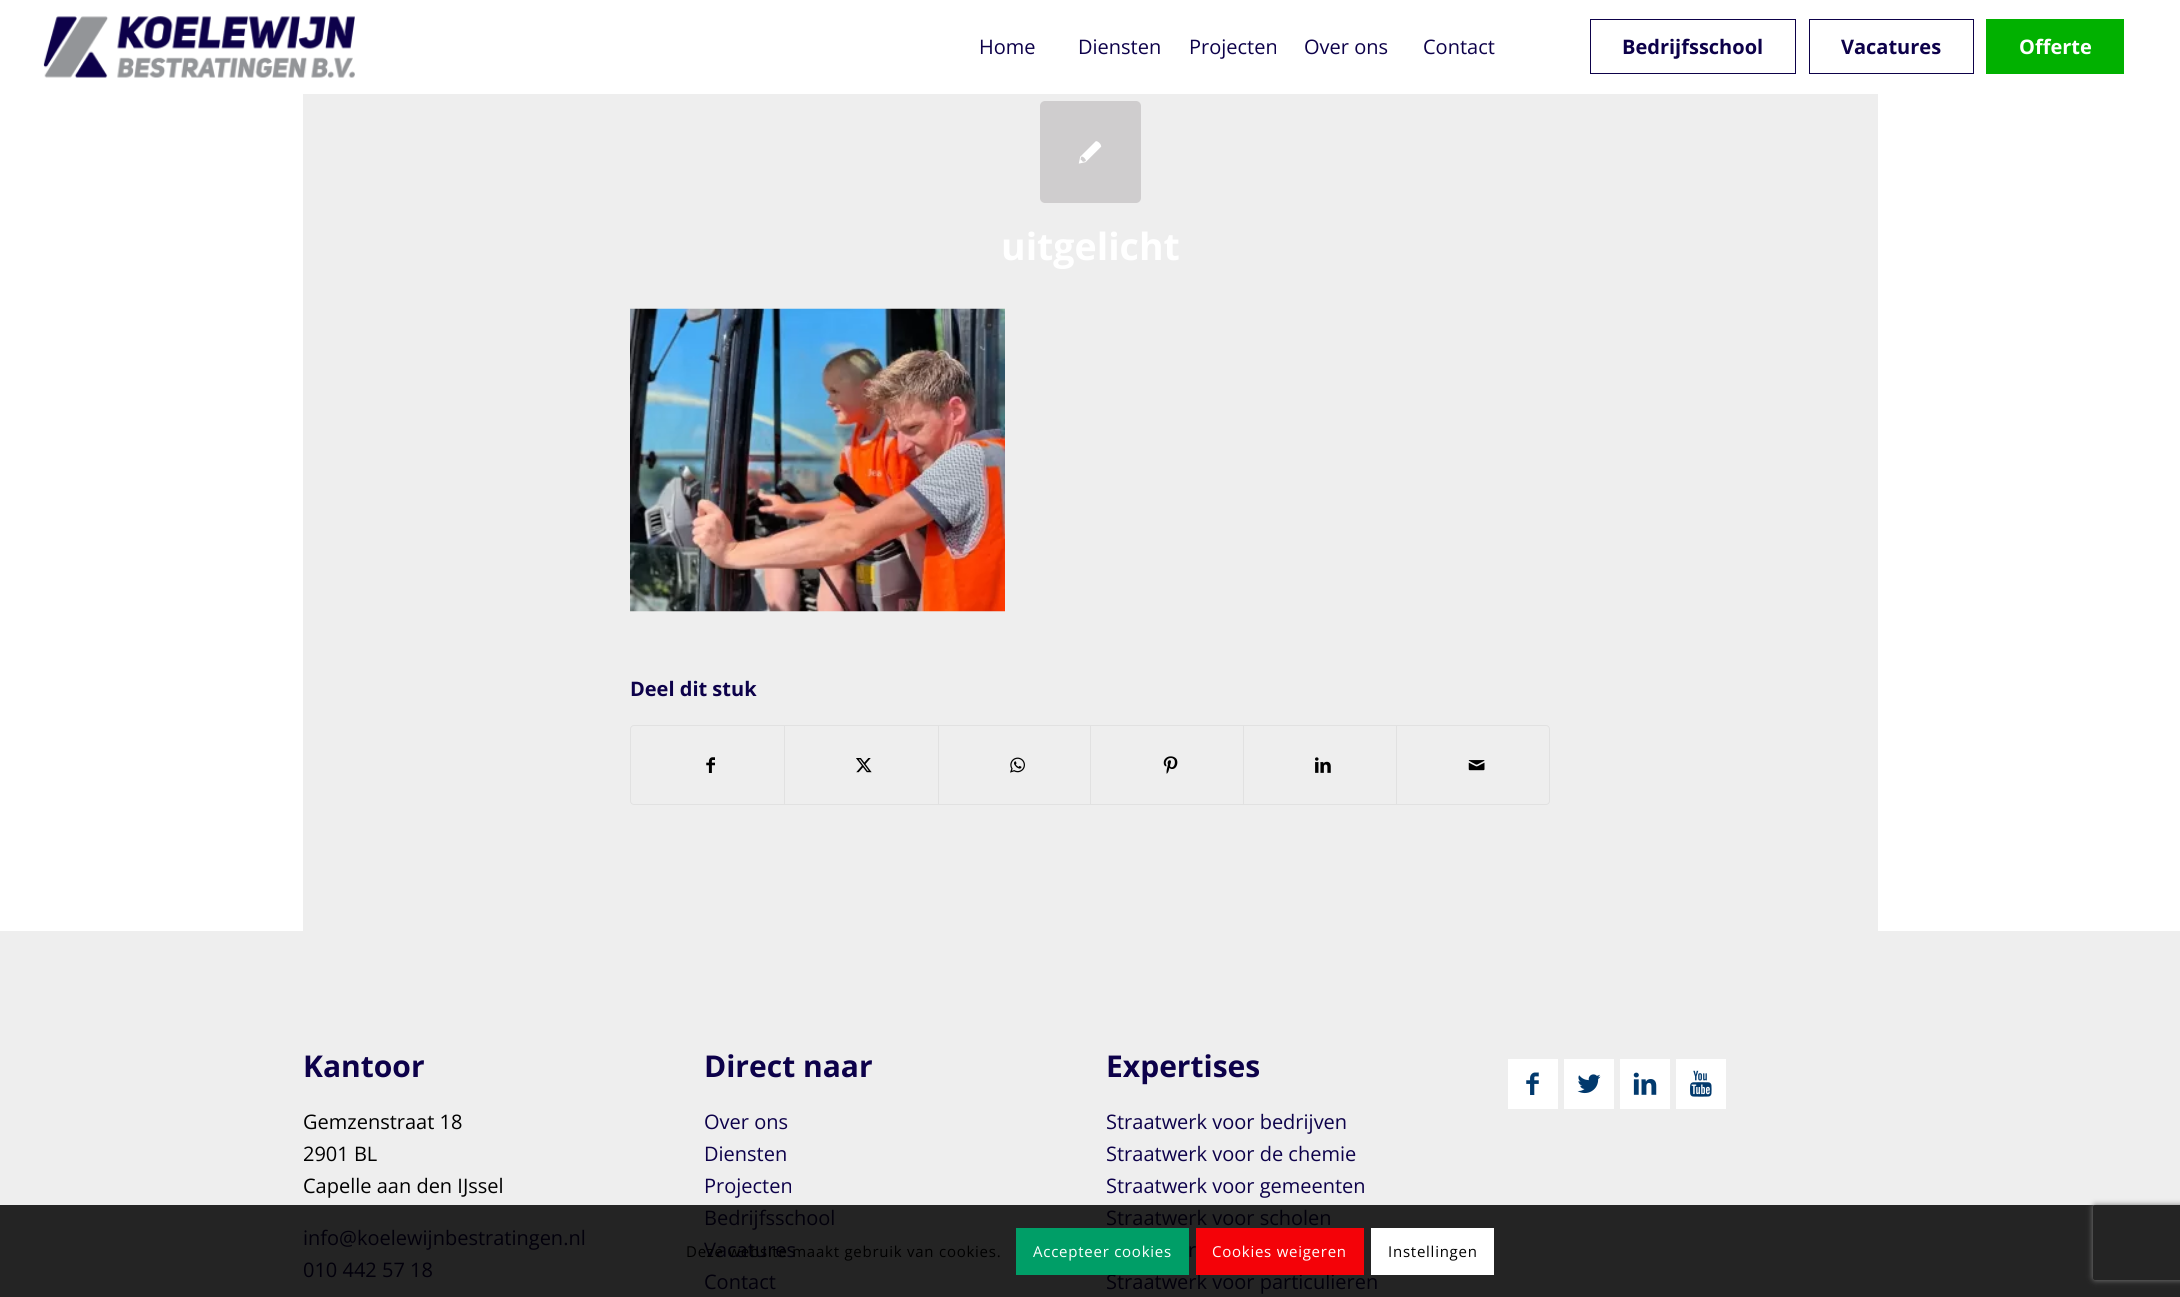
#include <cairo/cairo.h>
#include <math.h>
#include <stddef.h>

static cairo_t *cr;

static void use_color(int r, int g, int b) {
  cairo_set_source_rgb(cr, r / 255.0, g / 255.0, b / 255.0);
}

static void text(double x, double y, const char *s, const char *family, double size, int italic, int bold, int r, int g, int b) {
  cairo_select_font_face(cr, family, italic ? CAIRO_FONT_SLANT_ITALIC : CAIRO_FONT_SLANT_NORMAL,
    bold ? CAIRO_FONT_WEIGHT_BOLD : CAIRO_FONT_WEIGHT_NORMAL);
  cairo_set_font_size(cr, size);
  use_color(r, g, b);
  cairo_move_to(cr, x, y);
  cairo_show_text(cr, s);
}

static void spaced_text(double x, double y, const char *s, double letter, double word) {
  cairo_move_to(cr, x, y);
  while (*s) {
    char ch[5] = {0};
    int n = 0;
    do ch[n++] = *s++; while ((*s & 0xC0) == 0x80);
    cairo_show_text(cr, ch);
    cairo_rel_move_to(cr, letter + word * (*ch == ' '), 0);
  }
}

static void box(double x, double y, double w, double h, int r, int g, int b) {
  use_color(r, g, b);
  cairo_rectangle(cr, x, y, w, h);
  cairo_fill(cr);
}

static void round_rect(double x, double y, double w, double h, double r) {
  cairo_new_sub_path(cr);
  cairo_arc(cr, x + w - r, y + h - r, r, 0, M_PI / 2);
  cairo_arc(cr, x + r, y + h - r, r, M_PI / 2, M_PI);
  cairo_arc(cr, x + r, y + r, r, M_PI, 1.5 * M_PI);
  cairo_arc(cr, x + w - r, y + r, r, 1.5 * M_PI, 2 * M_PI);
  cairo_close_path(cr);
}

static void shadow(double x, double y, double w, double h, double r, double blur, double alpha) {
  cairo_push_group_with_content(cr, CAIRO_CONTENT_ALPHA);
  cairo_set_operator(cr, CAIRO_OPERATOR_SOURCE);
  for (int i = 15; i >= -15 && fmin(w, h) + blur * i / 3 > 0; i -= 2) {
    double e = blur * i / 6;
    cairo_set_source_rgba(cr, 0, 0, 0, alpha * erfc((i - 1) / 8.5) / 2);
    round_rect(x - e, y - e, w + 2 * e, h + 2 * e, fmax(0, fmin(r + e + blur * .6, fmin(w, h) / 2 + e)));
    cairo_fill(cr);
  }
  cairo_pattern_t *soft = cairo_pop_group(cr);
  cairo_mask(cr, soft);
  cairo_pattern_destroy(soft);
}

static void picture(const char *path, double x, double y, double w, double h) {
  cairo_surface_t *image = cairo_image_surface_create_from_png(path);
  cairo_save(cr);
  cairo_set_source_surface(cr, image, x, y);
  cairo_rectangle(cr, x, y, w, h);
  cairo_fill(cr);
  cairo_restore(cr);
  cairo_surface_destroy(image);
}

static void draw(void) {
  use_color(255, 255, 255);
  cairo_paint(cr);
  picture("img_01.png", 43, 16, 312, 62);
  cairo_rectangle(cr, 1590.5, 19.5, 205, 54);
  use_color(13, 1, 74);
  cairo_set_line_width(cr, 1);
  cairo_stroke(cr);
  cairo_rectangle(cr, 1809.5, 19.5, 164, 54);
  cairo_stroke(cr);
  box(1986, 19, 138, 55, 1, 177, 0);
  box(303, 94, 1575, 837, 238, 238, 238);
  use_color(207, 205, 206);
  round_rect(1040, 101, 101, 102, 5);
  cairo_fill(cr);
  picture("img_02.png", 1078, 141, 24, 23);
  picture("img_03.png", 630, 308, 375, 304);
  round_rect(630.5, 725.5, 919, 79, 3.5);
  use_color(225, 225, 225);
  cairo_stroke(cr);
  picture("img_04.png", 706, 757, 9, 16);
  box(784, 726, 1, 78, 225, 225, 225);
  picture("img_05.png", 856, 758, 16, 15);
  box(938, 726, 1, 78, 225, 225, 225);
  picture("img_06.png", 1010, 757, 15, 16);
  box(1090, 726, 1, 78, 225, 225, 225);
  picture("img_07.png", 1163, 756, 15, 18);
  box(1243, 726, 1, 78, 225, 225, 225);
  picture("img_08.png", 1315, 757, 16, 16);
  box(1396, 726, 1, 78, 225, 225, 225);
  picture("img_09.png", 1468, 760, 17, 11);
  box(0, 931, 2180, 274, 238, 238, 238);
  box(0, 1205, 2180, 92, 36, 36, 36);
  box(1508, 1059, 50, 50, 255, 255, 255);
  picture("img_10.png", 1526, 1072, 13, 23);
  box(1564, 1059, 50, 50, 255, 255, 255);
  picture("img_11.png", 1577, 1074, 24, 20);
  box(1620, 1059, 50, 50, 255, 255, 255);
  picture("img_12.png", 1633, 1072, 24, 23);
  box(1676, 1059, 50, 50, 255, 255, 255);
  picture("img_13.png", 1690, 1070, 22, 27);
  cairo_save(cr);
  cairo_set_fill_rule(cr, CAIRO_FILL_RULE_EVEN_ODD);
  cairo_new_path(cr);
  cairo_move_to(cr, 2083, 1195);
  cairo_line_to(cr, 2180, 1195);
  cairo_line_to(cr, 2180, 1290);
  cairo_line_to(cr, 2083, 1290);
  cairo_close_path(cr);
  cairo_move_to(cr, 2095.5, 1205);
  cairo_line_to(cr, 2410.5, 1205);
  cairo_curve_to(cr, 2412, 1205, 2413, 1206, 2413, 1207.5);
  cairo_line_to(cr, 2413, 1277.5);
  cairo_curve_to(cr, 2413, 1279, 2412, 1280, 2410.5, 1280);
  cairo_line_to(cr, 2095.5, 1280);
  cairo_curve_to(cr, 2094, 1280, 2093, 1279, 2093, 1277.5);
  cairo_line_to(cr, 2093, 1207.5);
  cairo_curve_to(cr, 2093, 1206, 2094, 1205, 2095.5, 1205);
  cairo_close_path(cr);
  cairo_clip(cr);
  use_color(128, 128, 128);
  shadow(2093, 1205, 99, 75, 2.5, 3, 1);
  cairo_restore(cr);
  text(979, 54, "Home", "Open Sans", 20, 0, 0, 13, 1, 74);
  text(1078, 54, "Diensten", "Open Sans", 20, 0, 0, 13, 1, 74);
  text(1189, 54, "Projecten", "Open Sans", 20, 0, 0, 13, 1, 74);
  text(1304, 54, "Over ons", "Open Sans", 20, 0, 0, 13, 1, 74);
  text(1423, 54, "Contact", "Open Sans", 20, 0, 0, 13, 1, 74);
  text(1622, 54, "Bedrijfsschool", "Open Sans", 20, 0, 1, 13, 1, 74);
  text(1841, 54, "Vacatures", "Open Sans", 20, 0, 1, 13, 1, 74);
  text(2019, 54, "Offerte", "Open Sans", 20, 0, 1, 255, 255, 255);
  text(1001, 260, "uitgelicht", "Open Sans", 37.5, 0, 1, 255, 255, 255);
  text(630, 696, "Deel dit stuk", "Open Sans", 20, 0, 1, 13, 1, 74);
  text(303, 1077, "Kantoor", "Open Sans", 30, 0, 1, 13, 1, 74);
  text(303, 1129, "Gemzenstraat 18", "Open Sans", 20, 0, 0, 0, 0, 0);
  text(303, 1161, "2901 BL", "Open Sans", 20, 0, 0, 0, 0, 0);
  text(303, 1193, "Capelle aan den IJssel", "Open Sans", 20, 0, 0, 0, 0, 0);
  text(303, 1245, "info@koelewijnbestratingen.nl", "Open Sans", 20, 0, 0, 2, 0, 11);
  text(303, 1277, "010 442 57 18", "Open Sans", 20, 0, 0, 2, 0, 11);
  text(704, 1077, "Direct naar", "Open Sans", 30, 0, 1, 13, 1, 74);
  text(704, 1129, "Over ons", "Open Sans", 20, 0, 0, 13, 1, 74);
  text(704, 1161, "Diensten", "Open Sans", 20, 0, 0, 13, 1, 74);
  text(704, 1193, "Projecten", "Open Sans", 20, 0, 0, 13, 1, 74);
  text(704, 1225, "Bedrijfsschool", "Open Sans", 20, 0, 0, 2, 0, 11);
  text(704, 1257, "Vacatures", "Open Sans", 20, 0, 0, 2, 0, 11);
  text(704, 1289, "Contact", "Open Sans", 20, 0, 0, 2, 0, 11);
  text(1106, 1077, "Expertises", "Open Sans", 30, 0, 1, 13, 1, 74);
  text(1106, 1129, "Straatwerk voor bedrijven", "Open Sans", 20, 0, 0, 13, 1, 74);
  text(1106, 1161, "Straatwerk voor de chemie", "Open Sans", 20, 0, 0, 13, 1, 74);
  text(1106, 1193, "Straatwerk voor gemeenten", "Open Sans", 20, 0, 0, 13, 1, 74);
  text(1106, 1225, "Straatwerk voor scholen", "Open Sans", 20, 0, 0, 2, 0, 11);
  text(1188, 1257, "r", "Open Sans", 20, 0, 0, 2, 0, 11);
  text(1106, 1289, "Straatwerk voor particulieren", "Open Sans", 20, 0, 0, 2, 0, 11);
  cairo_set_font_size(cr, 15);
  use_color(0, 0, 0);
  spaced_text(686, 1257, "Deze website maakt gebruik van cookies.", 0.75, 0);
  box(1016, 1228, 173, 47, 0, 158, 103);
  use_color(255, 255, 255);
  spaced_text(1033, 1257, "Accepteer cookies", 0.75, 0);
  box(1196, 1228, 168, 47, 244, 2, 8);
  use_color(255, 255, 255);
  spaced_text(1212, 1257, "Cookies weigeren", 0.75, 0);
  box(1371, 1228, 123, 47, 255, 255, 255);
  use_color(0, 0, 0);
  spaced_text(1388, 1257, "Instellingen", 0.75, 0);
}

int main(void) {
  cairo_surface_t *surface = cairo_image_surface_create(CAIRO_FORMAT_RGB24, 2180, 1297);
  cr = cairo_create(surface);
  cairo_font_options_t *options = cairo_font_options_create();
  cairo_font_options_set_hint_metrics(options, CAIRO_HINT_METRICS_OFF);
  cairo_font_options_set_hint_style(options, CAIRO_HINT_STYLE_NONE);
  cairo_set_font_options(cr, options);
  cairo_set_miter_limit(cr, 4);
  draw();
  cairo_surface_write_to_png(surface, "out.png");
  cairo_font_options_destroy(options);
  cairo_destroy(cr);
  cairo_surface_destroy(surface);
  return 0;
}
